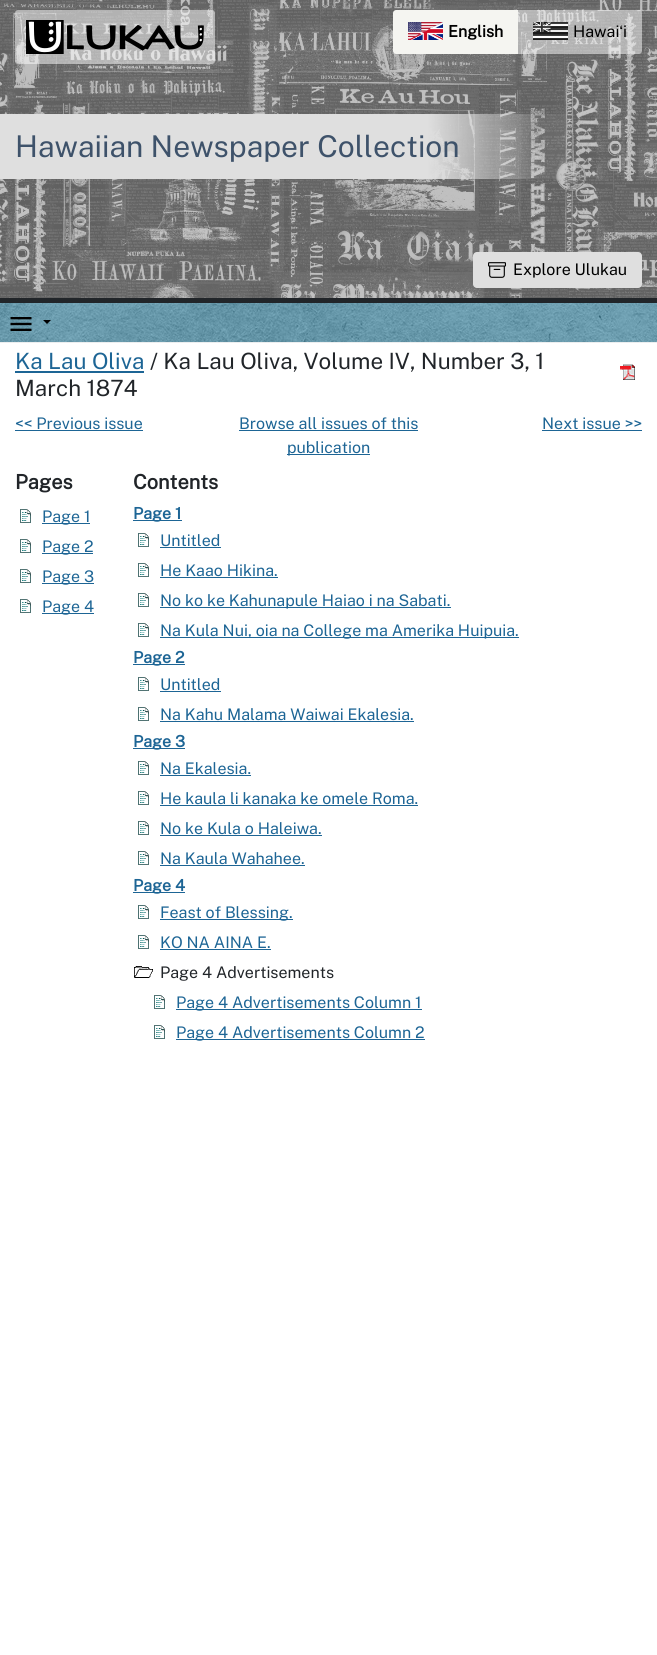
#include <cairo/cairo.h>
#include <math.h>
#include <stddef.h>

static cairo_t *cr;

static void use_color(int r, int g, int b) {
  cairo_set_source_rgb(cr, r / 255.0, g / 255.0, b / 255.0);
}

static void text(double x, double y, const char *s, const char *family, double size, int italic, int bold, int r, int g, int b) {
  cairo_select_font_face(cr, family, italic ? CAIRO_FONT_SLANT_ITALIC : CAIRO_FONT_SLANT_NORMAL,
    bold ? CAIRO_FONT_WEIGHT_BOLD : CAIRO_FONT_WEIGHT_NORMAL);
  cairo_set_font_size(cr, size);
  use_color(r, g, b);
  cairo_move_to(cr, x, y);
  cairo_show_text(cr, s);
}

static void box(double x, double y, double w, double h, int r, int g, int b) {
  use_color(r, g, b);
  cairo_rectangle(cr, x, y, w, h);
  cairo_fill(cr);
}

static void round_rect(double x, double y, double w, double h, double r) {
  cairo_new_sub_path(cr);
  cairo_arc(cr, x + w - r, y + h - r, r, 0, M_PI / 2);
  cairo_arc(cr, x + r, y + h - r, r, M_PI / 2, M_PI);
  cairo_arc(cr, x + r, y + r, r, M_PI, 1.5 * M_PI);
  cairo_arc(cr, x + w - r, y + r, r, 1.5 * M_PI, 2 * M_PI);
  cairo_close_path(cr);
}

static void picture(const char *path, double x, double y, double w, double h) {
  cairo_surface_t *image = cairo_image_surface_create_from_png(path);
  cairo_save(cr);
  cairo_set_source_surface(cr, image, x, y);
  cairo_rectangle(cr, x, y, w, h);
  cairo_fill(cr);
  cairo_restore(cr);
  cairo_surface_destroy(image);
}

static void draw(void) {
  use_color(255, 255, 255);
  cairo_paint(cr);
  picture("img_01.png", 0, 0, 657, 298);
  cairo_set_source_rgba(cr, 1, 1, 1, 0.5);
  round_rect(15, 10, 200, 54, 3);
  cairo_fill(cr);
  picture("img_02.png", 26, 20, 178, 34);
  use_color(245, 245, 241);
  cairo_new_path(cr);
  cairo_move_to(cr, 396, 10);
  cairo_line_to(cr, 518, 10);
  cairo_line_to(cr, 518, 54);
  cairo_line_to(cr, 396, 54);
  cairo_curve_to(cr, 394.5, 54, 393, 52.5, 393, 51);
  cairo_line_to(cr, 393, 13);
  cairo_curve_to(cr, 393, 11.5, 394.5, 10, 396, 10);
  cairo_close_path(cr);
  cairo_fill(cr);
  picture("img_03.png", 408, 22, 35, 18);
  cairo_set_source_rgba(cr, 1, 1, 1, 0.5);
  cairo_new_path(cr);
  cairo_move_to(cr, 518, 10);
  cairo_line_to(cr, 639, 10);
  cairo_curve_to(cr, 640.5, 10, 642, 11.5, 642, 13);
  cairo_line_to(cr, 642, 51);
  cairo_curve_to(cr, 642, 52.5, 640.5, 54, 639, 54);
  cairo_line_to(cr, 518, 54);
  cairo_close_path(cr);
  cairo_fill(cr);
  picture("img_04.png", 533, 22, 35, 18);
  use_color(223, 223, 223);
  round_rect(473, 252, 169, 36, 4);
  cairo_fill(cr);
  picture("img_05.png", 488, 262, 18, 16);
  picture("img_06.png", 0, 303, 657, 39);
  box(0, 298, 657, 5, 33, 37, 41);
  cairo_set_source_rgba(cr, 0, 0.384, 0.525, 0.5);
  cairo_rectangle(cr, 0, 303, 657, 39);
  cairo_fill(cr);
  picture("img_07.png", 10, 317, 22, 14);
  use_color(0, 0, 0);
  cairo_new_path(cr);
  cairo_move_to(cr, 43, 320);
  cairo_line_to(cr, 51, 320);
  cairo_line_to(cr, 47, 324);
  cairo_close_path(cr);
  cairo_fill(cr);
  box(0, 342, 657, 1, 236, 238, 239);
  box(15, 371, 129, 2, 29, 101, 149);
  picture("img_08.png", 620, 364, 15, 16);
  box(15, 430, 128, 1, 29, 101, 149);
  box(239, 430, 179, 1, 29, 101, 149);
  box(287, 454, 83, 1, 29, 101, 149);
  box(542, 430, 100, 1, 29, 101, 149);
  picture("img_09.png", 20, 509, 11, 14);
  box(42, 523, 48, 1, 29, 101, 149);
  picture("img_09.png", 20, 539, 11, 14);
  box(42, 553, 51, 1, 29, 101, 149);
  picture("img_09.png", 20, 569, 11, 14);
  box(42, 583, 52, 1, 29, 101, 149);
  picture("img_09.png", 20, 599, 11, 14);
  box(42, 613, 52, 1, 29, 101, 149);
  box(133, 520, 49, 1, 29, 101, 149);
  picture("img_09.png", 138, 533, 11, 14);
  box(160, 547, 61, 1, 29, 101, 149);
  picture("img_09.png", 138, 563, 11, 14);
  box(160, 577, 118, 1, 29, 101, 149);
  picture("img_09.png", 138, 593, 11, 14);
  box(160, 607, 291, 1, 29, 101, 149);
  picture("img_09.png", 138, 623, 11, 14);
  box(160, 637, 359, 1, 29, 101, 149);
  box(133, 664, 52, 1, 29, 101, 149);
  picture("img_09.png", 138, 677, 11, 14);
  box(160, 691, 61, 1, 29, 101, 149);
  picture("img_09.png", 138, 707, 11, 14);
  box(160, 721, 254, 1, 29, 101, 149);
  box(133, 748, 52, 1, 29, 101, 149);
  picture("img_09.png", 138, 761, 11, 14);
  box(160, 775, 91, 1, 29, 101, 149);
  picture("img_09.png", 138, 791, 11, 14);
  box(160, 805, 258, 1, 29, 101, 149);
  picture("img_09.png", 138, 821, 11, 14);
  box(160, 835, 162, 1, 29, 101, 149);
  picture("img_09.png", 138, 851, 11, 14);
  box(160, 865, 145, 1, 29, 101, 149);
  box(133, 892, 52, 1, 29, 101, 149);
  picture("img_09.png", 138, 905, 11, 14);
  box(160, 919, 133, 1, 29, 101, 149);
  picture("img_09.png", 138, 935, 11, 14);
  box(160, 949, 111, 1, 29, 101, 149);
  picture("img_10.png", 134, 966, 19, 12);
  picture("img_09.png", 154, 995, 11, 14);
  box(176, 1009, 246, 1, 29, 101, 149);
  picture("img_09.png", 154, 1025, 11, 14);
  box(176, 1039, 249, 1, 29, 101, 149);
  text(448, 37, "English", "Public Sans", 16, 0, 1, 0, 0, 0);
  text(573, 37, "Hawaiʻi", "Public Sans Thin", 16, 0, 0, 0, 0, 0);
  text(15, 157, "Hawaiian Newspaper Collection", "Public Sans Thin", 30, 0, 0, 62, 82, 106);
  text(513, 275, "Explore Ulukau", "Public Sans Thin", 16, 0, 0, 0, 0, 0);
  text(15, 369, "Ka Lau Oliva", "Public Sans Thin", 22.4, 0, 0, 29, 101, 149);
  text(150, 369, "/ Ka Lau Oliva, Volume IV, Number 3, 1", "Public Sans Thin", 22.4, 0, 0, 33, 37, 41);
  text(15, 396, "March 1874", "Public Sans Thin", 22.4, 0, 0, 33, 37, 41);
  text(15, 429, "<< Previous issue", "Public Sans Thin", 16, 0, 0, 29, 101, 149);
  text(239, 429, "Browse all issues of this", "Public Sans Thin", 16, 0, 0, 29, 101, 149);
  text(287, 453, "publication", "Public Sans Thin", 16, 0, 0, 29, 101, 149);
  text(542, 429, "Next issue >>", "Public Sans Thin", 16, 0, 0, 29, 101, 149);
  text(15, 489, "Pages", "Public Sans", 20, 0, 1, 33, 37, 41);
  text(42, 522, "Page 1", "Public Sans Thin", 16, 0, 0, 29, 101, 149);
  text(42, 552, "Page 2", "Public Sans Thin", 16, 0, 0, 29, 101, 149);
  text(42, 582, "Page 3", "Public Sans Thin", 16, 0, 0, 29, 101, 149);
  text(42, 612, "Page 4", "Public Sans Thin", 16, 0, 0, 29, 101, 149);
  text(133, 489, "Contents", "Public Sans", 20, 0, 1, 33, 37, 41);
  text(133, 519, "Page 1", "Public Sans", 16, 0, 1, 29, 101, 149);
  text(160, 546, "Untitled", "Public Sans Thin", 16, 0, 0, 29, 101, 149);
  text(160, 576, "He Kaao Hikina.", "Public Sans Thin", 16, 0, 0, 29, 101, 149);
  text(160, 606, "No ko ke Kahunapule Haiao i na Sabati.", "Public Sans Thin", 16, 0, 0, 29, 101, 149);
  text(160, 636, "Na Kula Nui, oia na College ma Amerika Huipuia.", "Public Sans Thin", 16, 0, 0, 29, 101, 149);
  text(133, 663, "Page 2", "Public Sans", 16, 0, 1, 29, 101, 149);
  text(160, 690, "Untitled", "Public Sans Thin", 16, 0, 0, 29, 101, 149);
  text(160, 720, "Na Kahu Malama Waiwai Ekalesia.", "Public Sans Thin", 16, 0, 0, 29, 101, 149);
  text(133, 747, "Page 3", "Public Sans", 16, 0, 1, 29, 101, 149);
  text(160, 774, "Na Ekalesia.", "Public Sans Thin", 16, 0, 0, 29, 101, 149);
  text(160, 804, "He kaula li kanaka ke omele Roma.", "Public Sans Thin", 16, 0, 0, 29, 101, 149);
  text(160, 834, "No ke Kula o Haleiwa.", "Public Sans Thin", 16, 0, 0, 29, 101, 149);
  text(160, 864, "Na Kaula Wahahee.", "Public Sans Thin", 16, 0, 0, 29, 101, 149);
  text(133, 891, "Page 4", "Public Sans", 16, 0, 1, 29, 101, 149);
  text(160, 918, "Feast of Blessing.", "Public Sans Thin", 16, 0, 0, 29, 101, 149);
  text(160, 948, "KO NA AINA E.", "Public Sans Thin", 16, 0, 0, 29, 101, 149);
  text(160, 978, "Page 4 Advertisements", "Public Sans Thin", 16, 0, 0, 33, 37, 41);
  text(176, 1008, "Page 4 Advertisements Column 1", "Public Sans Thin", 16, 0, 0, 29, 101, 149);
  text(176, 1038, "Page 4 Advertisements Column 2", "Public Sans Thin", 16, 0, 0, 29, 101, 149);
}

int main(void) {
  cairo_surface_t *surface = cairo_image_surface_create(CAIRO_FORMAT_RGB24, 657, 1655);
  cr = cairo_create(surface);
  cairo_font_options_t *options = cairo_font_options_create();
  cairo_font_options_set_hint_metrics(options, CAIRO_HINT_METRICS_OFF);
  cairo_font_options_set_hint_style(options, CAIRO_HINT_STYLE_NONE);
  cairo_set_font_options(cr, options);
  cairo_set_miter_limit(cr, 4);
  draw();
  cairo_surface_write_to_png(surface, "out.png");
  cairo_font_options_destroy(options);
  cairo_destroy(cr);
  cairo_surface_destroy(surface);
  return 0;
}
